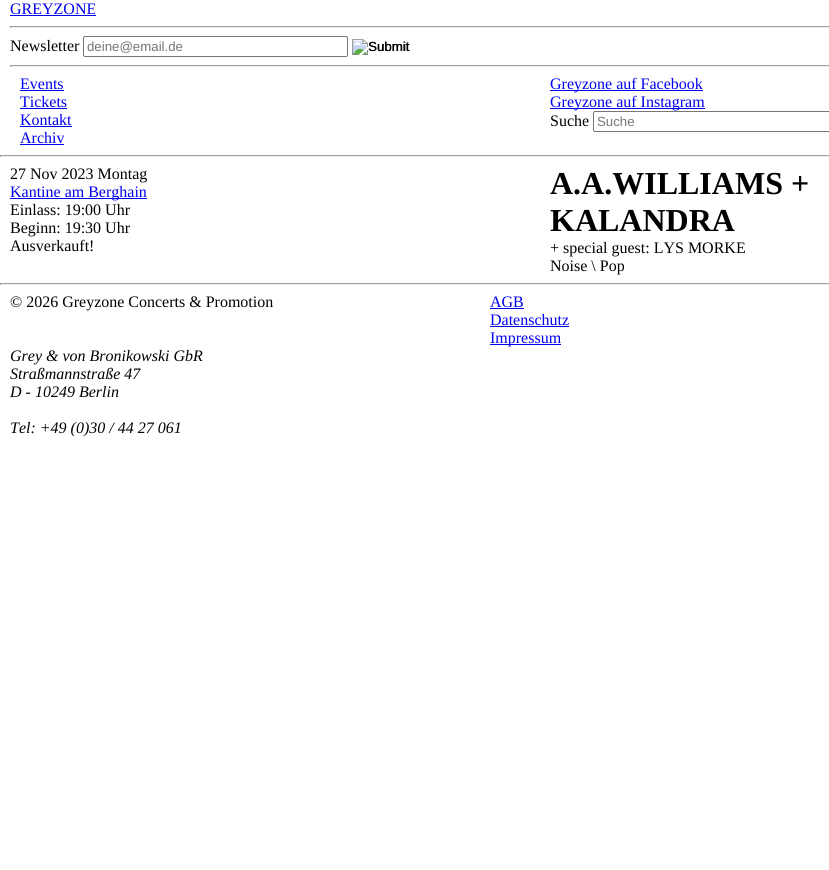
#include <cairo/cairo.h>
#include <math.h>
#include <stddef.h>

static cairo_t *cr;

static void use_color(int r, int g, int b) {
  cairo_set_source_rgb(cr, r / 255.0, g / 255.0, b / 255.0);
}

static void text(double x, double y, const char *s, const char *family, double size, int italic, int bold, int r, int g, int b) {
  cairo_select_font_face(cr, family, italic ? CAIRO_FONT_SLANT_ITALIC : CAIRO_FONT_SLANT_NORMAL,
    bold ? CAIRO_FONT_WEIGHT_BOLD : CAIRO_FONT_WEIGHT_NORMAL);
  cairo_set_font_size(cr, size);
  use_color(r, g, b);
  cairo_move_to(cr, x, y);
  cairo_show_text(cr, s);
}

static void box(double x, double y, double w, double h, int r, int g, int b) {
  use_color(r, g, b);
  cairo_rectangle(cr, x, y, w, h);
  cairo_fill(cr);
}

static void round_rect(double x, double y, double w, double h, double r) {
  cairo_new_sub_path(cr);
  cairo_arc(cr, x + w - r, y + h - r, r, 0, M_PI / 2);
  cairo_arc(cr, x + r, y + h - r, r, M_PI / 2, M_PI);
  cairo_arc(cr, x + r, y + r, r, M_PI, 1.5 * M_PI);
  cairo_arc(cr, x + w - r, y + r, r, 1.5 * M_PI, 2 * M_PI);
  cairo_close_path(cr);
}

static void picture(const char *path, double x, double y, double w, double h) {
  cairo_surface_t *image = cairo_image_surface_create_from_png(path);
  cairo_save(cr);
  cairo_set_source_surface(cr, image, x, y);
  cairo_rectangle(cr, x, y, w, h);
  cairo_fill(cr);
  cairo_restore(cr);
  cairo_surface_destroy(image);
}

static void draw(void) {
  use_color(255, 255, 255);
  cairo_paint(cr);
  box(10, 15, 86, 1, 0, 0, 238);
  box(10, 26, 819, 1, 159, 159, 159);
  box(10, 27, 819, 1, 238, 238, 238);
  box(10, 26, 1, 2, 159, 159, 159);
  round_rect(83.5, 36.5, 264, 20, 1.5);
  use_color(118, 118, 118);
  cairo_set_line_width(cr, 1);
  cairo_stroke(cr);
  picture("img_01.png", 352, 39, 58, 16);
  box(10, 65, 819, 1, 159, 159, 159);
  box(10, 66, 819, 1, 238, 238, 238);
  box(10, 65, 1, 2, 159, 159, 159);
  box(20, 90, 44, 1, 0, 0, 238);
  box(20, 108, 47, 1, 0, 0, 238);
  box(20, 126, 52, 1, 0, 0, 238);
  box(20, 144, 44, 1, 0, 0, 238);
  box(550, 90, 153, 1, 0, 0, 238);
  box(550, 108, 155, 1, 0, 0, 238);
  round_rect(593.5, 111.5, 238, 20, 1.5);
  use_color(118, 118, 118);
  cairo_stroke(cr);
  box(0, 155, 829, 1, 159, 159, 159);
  box(0, 156, 829, 1, 238, 238, 238);
  box(0, 155, 1, 2, 159, 159, 159);
  box(10, 198, 137, 1, 0, 0, 238);
  box(0, 283, 829, 1, 159, 159, 159);
  box(0, 284, 829, 1, 238, 238, 238);
  box(0, 283, 1, 2, 159, 159, 159);
  box(490, 308, 34, 1, 0, 0, 238);
  box(490, 326, 79, 1, 0, 0, 238);
  box(490, 344, 71, 1, 0, 0, 238);
  text(10, 14, "GREYZONE", "Liberation Serif", 16, 0, 0, 0, 0, 238);
  text(10, 51, "Newsletter", "Liberation Serif", 16, 0, 0, 0, 0, 0);
  text(87, 51, "deine@email.de", "Liberation Sans", 13.25, 0, 0, 117, 117, 117);
  text(368, 51, "Submit", "Liberation Sans", 13.25, 0, 0, 0, 0, 0);
  text(20, 89, "Events", "Liberation Serif", 16, 0, 0, 0, 0, 238);
  text(20, 107, "Tickets", "Liberation Serif", 16, 0, 0, 0, 0, 238);
  text(20, 125, "Kontakt", "Liberation Serif", 16, 0, 0, 0, 0, 238);
  text(20, 143, "Archiv", "Liberation Serif", 16, 0, 0, 0, 0, 238);
  text(550, 89, "Greyzone auf Facebook", "Liberation Serif", 16, 0, 0, 0, 0, 238);
  text(550, 107, "Greyzone auf Instagram", "Liberation Serif", 16, 0, 0, 0, 0, 238);
  text(550, 126, "Suche", "Liberation Serif", 16, 0, 0, 0, 0, 0);
  text(597, 126, "Suche", "Liberation Sans", 13.25, 0, 0, 117, 117, 117);
  text(10, 179, "27 Nov 2023 Montag", "Liberation Serif", 16, 0, 0, 0, 0, 0);
  text(10, 197, "Kantine am Berghain", "Liberation Serif", 16, 0, 0, 0, 0, 238);
  text(10, 215, "Einlass: 19:00 Uhr", "Liberation Serif", 16, 0, 0, 0, 0, 0);
  text(10, 233, "Beginn: 19:30 Uhr", "Liberation Serif", 16, 0, 0, 0, 0, 0);
  text(10, 251, "Ausverkauft!", "Liberation Serif", 16, 0, 0, 0, 0, 0);
  text(550, 194, "A.A.WILLIAMS +", "Liberation Serif", 32, 0, 1, 0, 0, 0);
  text(550, 231, "KALANDRA", "Liberation Serif", 32, 0, 1, 0, 0, 0);
  text(550, 253, "+ special guest: LYS MORKE", "Liberation Serif", 16, 0, 0, 0, 0, 0);
  text(550, 271, "Noise \\ Pop", "Liberation Serif", 16, 0, 0, 0, 0, 0);
  text(10, 307, "© 2026 Greyzone Concerts & Promotion", "Liberation Serif", 16, 0, 0, 0, 0, 0);
  text(490, 307, "AGB", "Liberation Serif", 16, 0, 0, 0, 0, 238);
  text(490, 325, "Datenschutz", "Liberation Serif", 16, 0, 0, 0, 0, 238);
  text(490, 343, "Impressum", "Liberation Serif", 16, 0, 0, 0, 0, 238);
  text(10, 361, "Grey & von Bronikowski GbR", "Liberation Serif", 16, 1, 0, 0, 0, 0);
  text(10, 379, "Straßmannstraße 47", "Liberation Serif", 16, 1, 0, 0, 0, 0);
  text(10, 397, "D - 10249 Berlin", "Liberation Serif", 16, 1, 0, 0, 0, 0);
  text(10, 433, "Tel: +49 (0)30 / 44 27 061", "Liberation Serif", 16, 1, 0, 0, 0, 0);
}

int main(void) {
  cairo_surface_t *surface = cairo_image_surface_create(CAIRO_FORMAT_RGB24, 829, 870);
  cr = cairo_create(surface);
  cairo_font_options_t *options = cairo_font_options_create();
  cairo_font_options_set_hint_metrics(options, CAIRO_HINT_METRICS_OFF);
  cairo_font_options_set_hint_style(options, CAIRO_HINT_STYLE_NONE);
  cairo_set_font_options(cr, options);
  cairo_set_miter_limit(cr, 4);
  draw();
  cairo_surface_write_to_png(surface, "out.png");
  cairo_font_options_destroy(options);
  cairo_destroy(cr);
  cairo_surface_destroy(surface);
  return 0;
}
